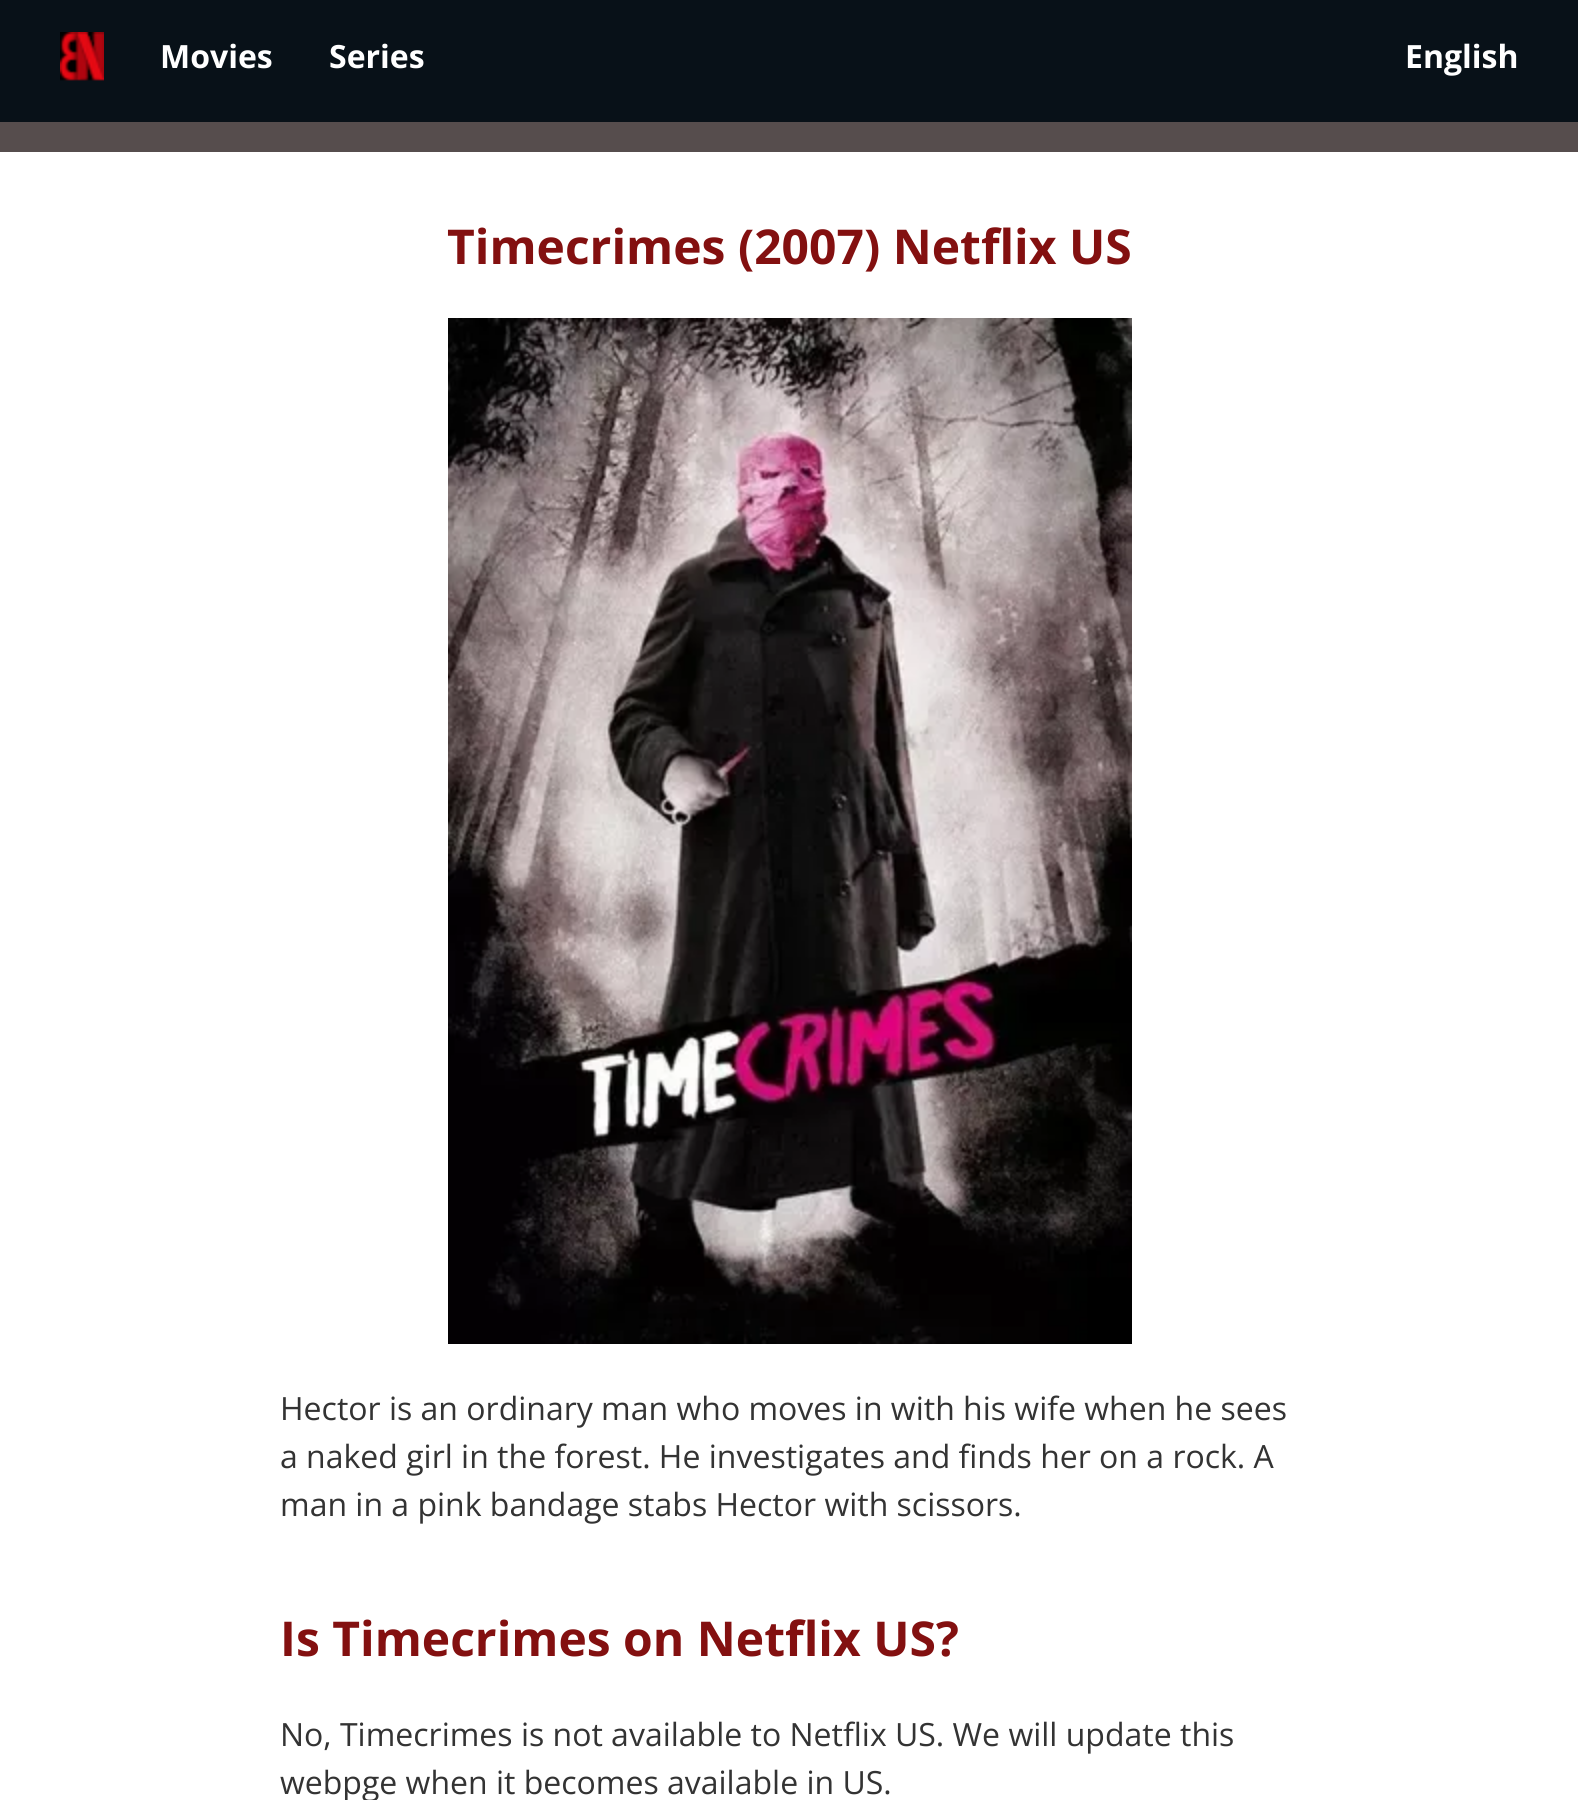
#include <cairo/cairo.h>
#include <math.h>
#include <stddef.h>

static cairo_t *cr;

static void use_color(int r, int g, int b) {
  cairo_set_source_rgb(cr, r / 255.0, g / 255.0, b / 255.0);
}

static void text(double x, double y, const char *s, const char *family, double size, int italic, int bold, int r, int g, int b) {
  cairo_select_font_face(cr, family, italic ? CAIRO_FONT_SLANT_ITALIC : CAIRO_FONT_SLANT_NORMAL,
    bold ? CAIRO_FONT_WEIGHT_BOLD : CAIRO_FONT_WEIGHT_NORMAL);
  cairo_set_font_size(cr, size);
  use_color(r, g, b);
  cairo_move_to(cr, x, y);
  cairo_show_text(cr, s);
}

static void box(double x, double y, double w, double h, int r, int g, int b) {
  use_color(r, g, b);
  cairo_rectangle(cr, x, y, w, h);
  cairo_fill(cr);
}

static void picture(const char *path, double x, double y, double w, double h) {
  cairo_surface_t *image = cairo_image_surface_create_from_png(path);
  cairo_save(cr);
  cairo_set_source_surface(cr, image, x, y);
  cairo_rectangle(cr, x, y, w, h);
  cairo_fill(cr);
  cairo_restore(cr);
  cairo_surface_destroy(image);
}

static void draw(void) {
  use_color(86, 77, 77);
  cairo_paint(cr);
  box(0, 0, 1578, 122, 8, 17, 24);
  picture("img_01.png", 60, 32, 44, 49);
  box(0, 152, 1578, 1648, 255, 255, 255);
  picture("img_02.png", 448, 318, 684, 1026);
  text(160, 68, "Movies", "Open Sans", 32, 0, 1, 255, 255, 255);
  text(329, 68, "Series", "Open Sans", 32, 0, 1, 255, 255, 255);
  text(1405, 68, "English", "Open Sans", 32, 0, 1, 255, 255, 255);
  text(447, 264, "Timecrimes (2007) Netflix US", "Open Sans", 48, 0, 1, 131, 16, 16);
  text(280, 1420, "Hector is an ordinary man who moves in with his wife when he sees", "Open Sans", 32, 0, 0, 51, 51, 51);
  text(280, 1468, "a naked girl in the forest. He investigates and finds her on a rock. A", "Open Sans", 32, 0, 0, 51, 51, 51);
  text(280, 1516, "man in a pink bandage stabs Hector with scissors.", "Open Sans", 32, 0, 0, 51, 51, 51);
  text(280, 1656, "Is Timecrimes on Netflix US?", "Open Sans", 48, 0, 1, 131, 16, 16);
  text(280, 1746, "No, Timecrimes is not available to Netflix US. We will update this", "Open Sans", 32, 0, 0, 51, 51, 51);
  text(280, 1794, "webpge when it becomes available in US.", "Open Sans", 32, 0, 0, 51, 51, 51);
}

int main(void) {
  cairo_surface_t *surface = cairo_image_surface_create(CAIRO_FORMAT_RGB24, 1578, 1800);
  cr = cairo_create(surface);
  cairo_font_options_t *options = cairo_font_options_create();
  cairo_font_options_set_hint_metrics(options, CAIRO_HINT_METRICS_OFF);
  cairo_font_options_set_hint_style(options, CAIRO_HINT_STYLE_NONE);
  cairo_set_font_options(cr, options);
  cairo_set_miter_limit(cr, 4);
  draw();
  cairo_surface_write_to_png(surface, "out.png");
  cairo_font_options_destroy(options);
  cairo_destroy(cr);
  cairo_surface_destroy(surface);
  return 0;
}
